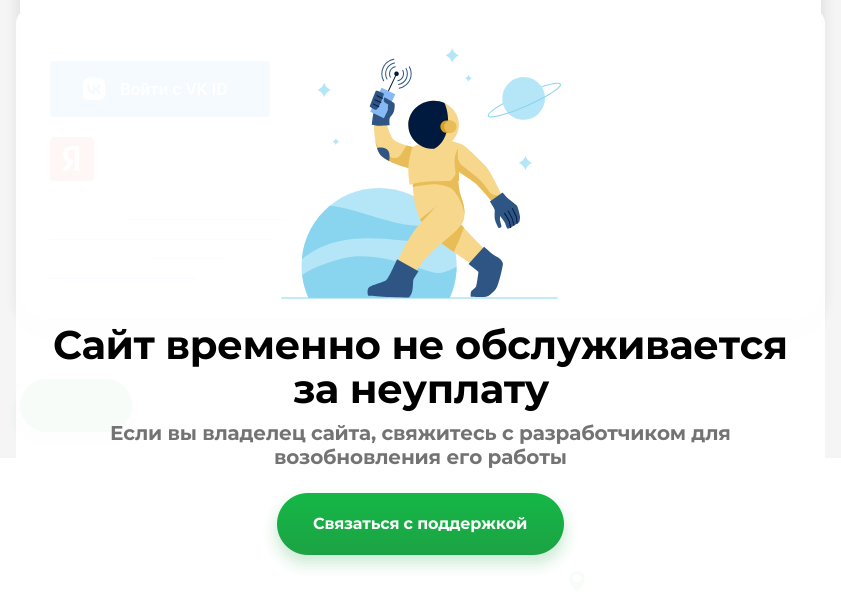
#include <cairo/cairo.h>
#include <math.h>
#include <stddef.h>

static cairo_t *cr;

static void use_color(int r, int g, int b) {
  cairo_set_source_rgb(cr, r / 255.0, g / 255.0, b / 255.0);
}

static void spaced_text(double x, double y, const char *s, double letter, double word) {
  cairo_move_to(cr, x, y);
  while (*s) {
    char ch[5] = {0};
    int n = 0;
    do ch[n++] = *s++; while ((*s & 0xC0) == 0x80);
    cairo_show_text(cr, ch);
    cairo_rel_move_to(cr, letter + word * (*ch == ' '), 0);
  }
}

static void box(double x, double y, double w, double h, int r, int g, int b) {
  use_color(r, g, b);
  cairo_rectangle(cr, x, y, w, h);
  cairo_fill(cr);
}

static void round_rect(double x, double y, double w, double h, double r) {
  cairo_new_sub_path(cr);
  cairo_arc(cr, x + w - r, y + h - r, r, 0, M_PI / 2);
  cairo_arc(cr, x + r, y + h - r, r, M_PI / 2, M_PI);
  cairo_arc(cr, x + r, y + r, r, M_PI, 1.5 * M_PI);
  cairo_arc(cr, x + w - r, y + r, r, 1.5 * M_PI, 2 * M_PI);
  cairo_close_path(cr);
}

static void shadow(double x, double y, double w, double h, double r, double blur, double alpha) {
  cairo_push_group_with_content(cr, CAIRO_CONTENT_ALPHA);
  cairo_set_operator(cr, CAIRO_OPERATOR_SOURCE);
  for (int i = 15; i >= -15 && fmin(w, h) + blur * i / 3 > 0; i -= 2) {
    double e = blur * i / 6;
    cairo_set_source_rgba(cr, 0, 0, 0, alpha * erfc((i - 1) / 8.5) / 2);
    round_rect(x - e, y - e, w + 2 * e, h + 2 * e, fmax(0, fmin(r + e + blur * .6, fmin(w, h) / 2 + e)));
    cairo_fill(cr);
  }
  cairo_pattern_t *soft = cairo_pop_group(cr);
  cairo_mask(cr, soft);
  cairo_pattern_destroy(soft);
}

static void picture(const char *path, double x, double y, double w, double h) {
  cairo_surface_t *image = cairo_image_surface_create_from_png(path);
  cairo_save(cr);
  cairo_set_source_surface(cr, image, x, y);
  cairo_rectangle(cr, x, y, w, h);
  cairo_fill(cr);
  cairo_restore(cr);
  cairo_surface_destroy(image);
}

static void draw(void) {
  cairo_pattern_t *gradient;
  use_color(245, 245, 245);
  cairo_paint(cr);
  use_color(0, 0, 0);
  shadow(20, -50, 801, 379, 27, 7.5, 0.13);
  use_color(255, 255, 255);
  round_rect(20, -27, 801, 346, 27);
  cairo_fill(cr);
  use_color(0, 119, 255);
  round_rect(50, 61, 220, 56, 4);
  cairo_fill(cr);
  picture("img_01.png", 83, 78, 144, 22);
  picture("img_02.png", 50, 137, 44, 44);
  cairo_new_path(cr);
  cairo_move_to(cr, 129, 219.5);
  cairo_line_to(cr, 285, 219.5);
  use_color(17, 85, 204);
  cairo_set_line_width(cr, 1);
  cairo_set_dash(cr, (double[]){1, 1}, 2, 0);
  cairo_stroke(cr);
  cairo_new_path(cr);
  cairo_move_to(cr, 50, 239.5);
  cairo_line_to(cr, 271, 239.5);
  cairo_stroke(cr);
  cairo_new_path(cr);
  cairo_move_to(cr, 153, 258.5);
  cairo_line_to(cr, 224, 258.5);
  cairo_stroke(cr);
  cairo_new_path(cr);
  cairo_move_to(cr, 50, 278.5);
  cairo_line_to(cr, 195, 278.5);
  cairo_stroke(cr);
  box(0, 458, 841, 137, 255, 255, 255);
  use_color(53, 191, 69);
  shadow(20, 389, 112, 53, 26.5, 7.5, 0.15);
  use_color(53, 191, 69);
  round_rect(20, 379, 112, 53, 26.5);
  cairo_fill(cr);
  picture("img_03.png", 569, 571, 16, 21);
  cairo_set_source_rgba(cr, 1, 1, 1, 0.96);
  cairo_new_path(cr);
  cairo_move_to(cr, 32, 8);
  cairo_line_to(cr, 809, 8);
  cairo_curve_to(cr, 818, 8, 825, 15, 825, 24);
  cairo_line_to(cr, 825, 595);
  cairo_line_to(cr, 16, 595);
  cairo_line_to(cr, 16, 24);
  cairo_curve_to(cr, 16, 15, 23, 8, 32, 8);
  cairo_close_path(cr);
  cairo_fill(cr);
  picture("img_04.png", 281, 48, 280, 251);
  use_color(28, 163, 69);
  shadow(277, 501, 287, 62, 31, 8, 0.24);
  gradient = cairo_pattern_create_linear(421, 493, 421, 555);
  cairo_pattern_add_color_stop_rgba(gradient, 0, 0.082, 0.718, 0.275, 1);
  cairo_pattern_add_color_stop_rgba(gradient, 1, 0.11, 0.639, 0.271, 1);
  cairo_set_source(cr, gradient);
  cairo_pattern_destroy(gradient);
  round_rect(277, 493, 287, 62, 31);
  cairo_fill(cr);
  cairo_select_font_face(cr, "Montserrat", CAIRO_FONT_SLANT_NORMAL, CAIRO_FONT_WEIGHT_BOLD);
  cairo_set_font_size(cr, 40);
  use_color(0, 0, 0);
  spaced_text(53, 359, "Сайт временно не обслуживается", -0.4, 0);
  spaced_text(293, 403, "за неуплату", -0.4, 0);
  cairo_set_font_size(cr, 20);
  use_color(115, 115, 115);
  spaced_text(110, 440, "Если вы владелец сайта, свяжитесь с разработчиком для", -0.2, 0);
  spaced_text(274, 464, "возобновления его работы", -0.2, 0);
  cairo_set_font_size(cr, 16);
  use_color(255, 255, 255);
  spaced_text(313, 529, "Связаться с поддержкой", -0.2, 0);
}

int main(void) {
  cairo_surface_t *surface = cairo_image_surface_create(CAIRO_FORMAT_RGB24, 841, 595);
  cr = cairo_create(surface);
  cairo_font_options_t *options = cairo_font_options_create();
  cairo_font_options_set_hint_metrics(options, CAIRO_HINT_METRICS_OFF);
  cairo_font_options_set_hint_style(options, CAIRO_HINT_STYLE_NONE);
  cairo_set_font_options(cr, options);
  cairo_set_miter_limit(cr, 4);
  draw();
  cairo_surface_write_to_png(surface, "out.png");
  cairo_font_options_destroy(options);
  cairo_destroy(cr);
  cairo_surface_destroy(surface);
  return 0;
}
